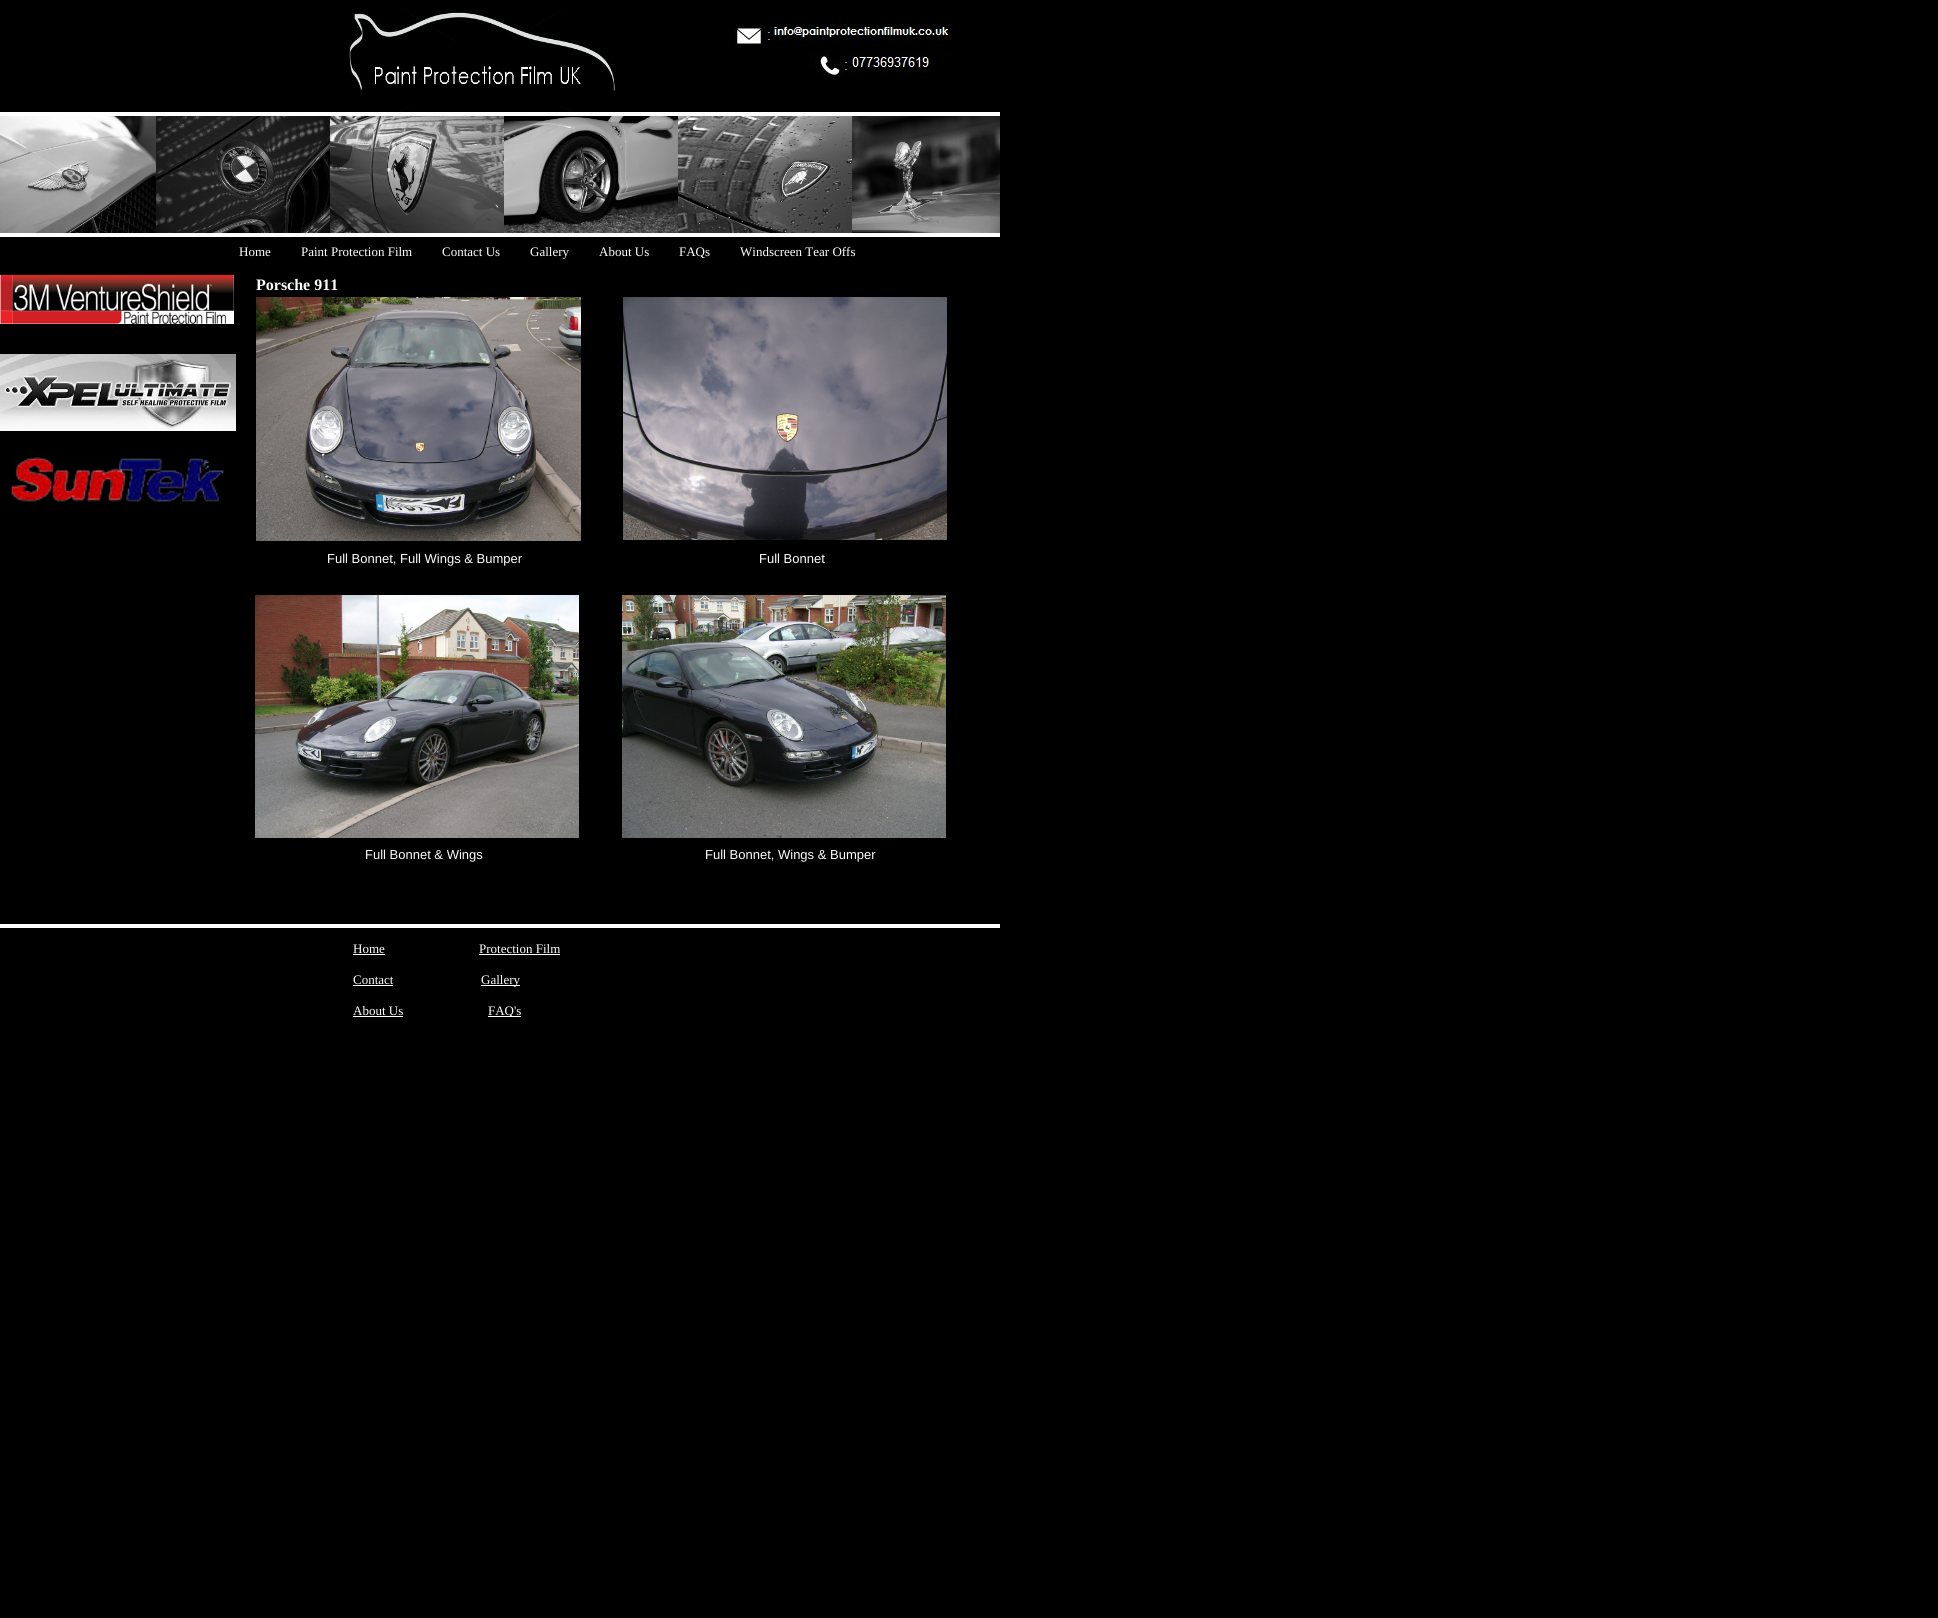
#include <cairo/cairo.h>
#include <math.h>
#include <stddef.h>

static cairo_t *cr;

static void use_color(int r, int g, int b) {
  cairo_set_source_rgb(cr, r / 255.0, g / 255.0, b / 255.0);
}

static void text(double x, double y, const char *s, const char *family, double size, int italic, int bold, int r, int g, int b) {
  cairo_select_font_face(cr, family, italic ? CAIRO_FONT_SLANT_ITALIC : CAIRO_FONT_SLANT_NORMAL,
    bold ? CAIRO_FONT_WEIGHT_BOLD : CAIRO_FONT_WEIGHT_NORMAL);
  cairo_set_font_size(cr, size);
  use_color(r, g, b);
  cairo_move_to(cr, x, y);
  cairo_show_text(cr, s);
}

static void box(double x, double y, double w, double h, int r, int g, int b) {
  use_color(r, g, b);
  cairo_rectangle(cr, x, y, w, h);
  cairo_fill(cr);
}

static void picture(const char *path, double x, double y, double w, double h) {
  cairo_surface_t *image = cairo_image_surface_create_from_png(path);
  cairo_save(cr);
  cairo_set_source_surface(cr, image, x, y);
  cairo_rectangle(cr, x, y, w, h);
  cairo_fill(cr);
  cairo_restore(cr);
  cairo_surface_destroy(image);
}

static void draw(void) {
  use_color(0, 0, 0);
  cairo_paint(cr);
  picture("img_01.png", 349, 9, 266, 103);
  picture("img_02.png", 735, 24, 215, 55);
  box(0, 112, 1000, 4, 255, 255, 255);
  picture("img_03.png", 0, 116, 156, 117);
  picture("img_04.png", 156, 116, 174, 117);
  picture("img_05.png", 330, 116, 174, 117);
  picture("img_06.png", 504, 116, 174, 117);
  picture("img_07.png", 678, 116, 174, 117);
  picture("img_08.png", 852, 116, 148, 117);
  box(0, 233, 1000, 4, 255, 255, 255);
  picture("img_09.png", 0, 275, 234, 49);
  picture("img_10.png", 0, 354, 236, 77);
  picture("img_11.png", 256, 297, 325, 244);
  picture("img_12.png", 623, 297, 324, 243);
  picture("img_13.png", 11, 457, 213, 46);
  picture("img_14.png", 255, 595, 324, 243);
  picture("img_15.png", 622, 595, 324, 243);
  box(0, 924, 1000, 4, 255, 255, 255);
  box(353, 954, 32, 1, 255, 255, 255);
  box(479, 954, 81, 1, 255, 255, 255);
  box(353, 985, 40, 1, 255, 255, 255);
  box(481, 985, 39, 1, 255, 255, 255);
  box(353, 1016, 50, 1, 255, 255, 255);
  box(488, 1016, 33, 1, 255, 255, 255);
  text(239, 256, "Home", "Liberation Serif", 13, 0, 0, 255, 255, 255);
  text(301, 256, "Paint Protection Film", "Liberation Serif", 13, 0, 0, 255, 255, 255);
  text(442, 256, "Contact Us", "Liberation Serif", 13, 0, 0, 255, 255, 255);
  text(530, 256, "Gallery", "Liberation Serif", 13, 0, 0, 255, 255, 255);
  text(599, 256, "About Us", "Liberation Serif", 13, 0, 0, 255, 255, 255);
  text(679, 256, "FAQs", "Liberation Serif", 13, 0, 0, 255, 255, 255);
  text(740, 256, "Windscreen Tear Offs", "Liberation Serif", 13, 0, 0, 255, 255, 255);
  text(256, 290, "Porsche 911", "Liberation Serif", 16, 0, 1, 255, 255, 255);
  text(327, 563, "Full Bonnet, Full Wings & Bumper", "Liberation Sans", 13, 0, 0, 255, 255, 255);
  text(759, 563, "Full Bonnet", "Liberation Sans", 13, 0, 0, 255, 255, 255);
  text(365, 859, "Full Bonnet & Wings", "Liberation Sans", 13, 0, 0, 255, 255, 255);
  text(705, 859, "Full Bonnet, Wings & Bumper", "Liberation Sans", 13, 0, 0, 255, 255, 255);
  text(353, 953, "Home", "Liberation Serif", 13, 0, 0, 255, 255, 255);
  text(479, 953, "Protection Film", "Liberation Serif", 13, 0, 0, 255, 255, 255);
  text(353, 984, "Contact", "Liberation Serif", 13, 0, 0, 255, 255, 255);
  text(481, 984, "Gallery", "Liberation Serif", 13, 0, 0, 255, 255, 255);
  text(353, 1015, "About Us", "Liberation Serif", 13, 0, 0, 255, 255, 255);
  text(488, 1015, "FAQ's", "Liberation Serif", 13, 0, 0, 255, 255, 255);
}

int main(void) {
  cairo_surface_t *surface = cairo_image_surface_create(CAIRO_FORMAT_RGB24, 1938, 1618);
  cr = cairo_create(surface);
  cairo_font_options_t *options = cairo_font_options_create();
  cairo_font_options_set_hint_metrics(options, CAIRO_HINT_METRICS_OFF);
  cairo_font_options_set_hint_style(options, CAIRO_HINT_STYLE_NONE);
  cairo_set_font_options(cr, options);
  cairo_set_miter_limit(cr, 4);
  draw();
  cairo_surface_write_to_png(surface, "out.png");
  cairo_font_options_destroy(options);
  cairo_destroy(cr);
  cairo_surface_destroy(surface);
  return 0;
}
